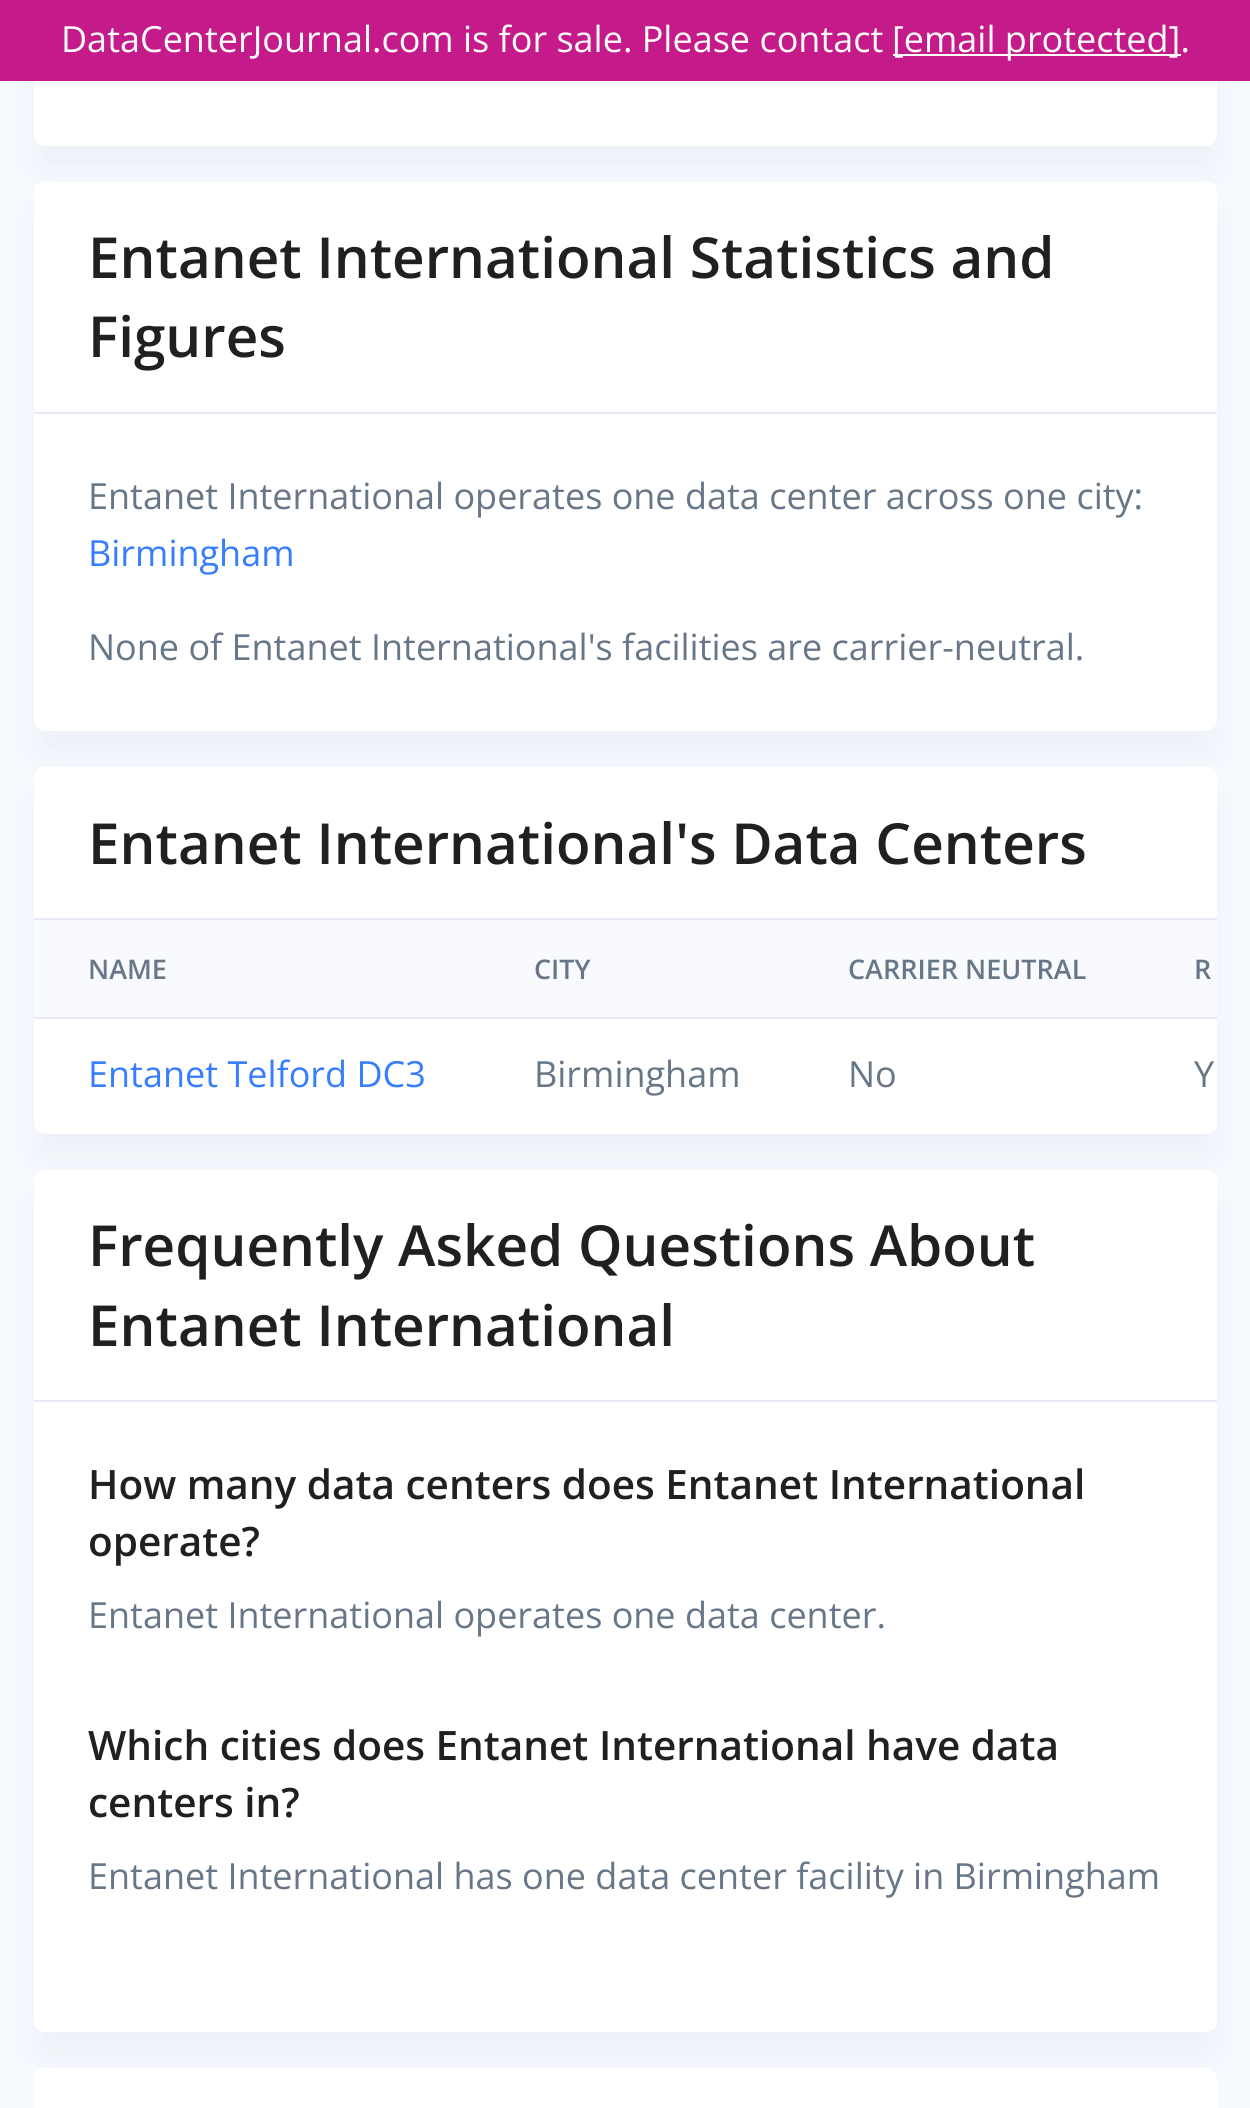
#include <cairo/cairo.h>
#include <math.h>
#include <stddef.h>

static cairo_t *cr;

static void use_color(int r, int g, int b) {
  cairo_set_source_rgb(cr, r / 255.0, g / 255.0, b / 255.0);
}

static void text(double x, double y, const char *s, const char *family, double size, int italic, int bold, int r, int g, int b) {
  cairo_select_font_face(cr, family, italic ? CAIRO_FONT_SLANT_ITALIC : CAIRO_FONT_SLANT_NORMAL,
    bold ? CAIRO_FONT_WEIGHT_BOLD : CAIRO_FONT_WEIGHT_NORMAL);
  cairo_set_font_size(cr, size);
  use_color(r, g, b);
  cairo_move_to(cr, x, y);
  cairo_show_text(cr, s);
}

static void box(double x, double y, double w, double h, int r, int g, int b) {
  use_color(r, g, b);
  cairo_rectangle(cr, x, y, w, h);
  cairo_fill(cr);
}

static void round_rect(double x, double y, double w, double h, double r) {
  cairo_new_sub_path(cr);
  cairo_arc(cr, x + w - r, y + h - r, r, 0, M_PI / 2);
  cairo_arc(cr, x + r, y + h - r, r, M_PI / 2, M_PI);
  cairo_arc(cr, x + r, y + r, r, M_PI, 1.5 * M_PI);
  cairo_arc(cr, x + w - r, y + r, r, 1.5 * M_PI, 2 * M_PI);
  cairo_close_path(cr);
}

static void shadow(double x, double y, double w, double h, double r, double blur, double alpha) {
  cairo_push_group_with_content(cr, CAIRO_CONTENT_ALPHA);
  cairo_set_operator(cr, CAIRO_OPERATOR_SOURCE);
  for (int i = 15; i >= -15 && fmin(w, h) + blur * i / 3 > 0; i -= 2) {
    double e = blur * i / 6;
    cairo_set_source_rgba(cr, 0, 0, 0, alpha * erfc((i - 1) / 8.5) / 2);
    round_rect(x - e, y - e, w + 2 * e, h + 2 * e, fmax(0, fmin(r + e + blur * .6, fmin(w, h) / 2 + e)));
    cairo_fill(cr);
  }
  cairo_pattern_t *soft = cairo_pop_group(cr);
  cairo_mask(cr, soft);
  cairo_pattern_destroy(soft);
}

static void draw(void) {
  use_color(247, 250, 255);
  cairo_paint(cr);
  use_color(140, 152, 164);
  shadow(34, -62, 1183, 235, 11, 17, 0.1);
  use_color(255, 255, 255);
  round_rect(34, -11, 1183, 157, 11);
  cairo_fill(cr);
  box(0, 0, 1250, 81, 197, 27, 138);
  box(893, 54, 288, 2, 255, 255, 255);
  use_color(140, 152, 164);
  shadow(34, 209, 1183, 549, 11, 17, 0.1);
  use_color(255, 255, 255);
  round_rect(34, 182, 1183, 549, 11);
  cairo_fill(cr);
  cairo_new_path(cr);
  cairo_move_to(cr, 43, 182);
  cairo_line_to(cr, 1208, 182);
  cairo_curve_to(cr, 1213, 182, 1217, 186, 1217, 191);
  cairo_line_to(cr, 1217, 414);
  cairo_line_to(cr, 34, 414);
  cairo_line_to(cr, 34, 191);
  cairo_curve_to(cr, 34, 186, 38, 182, 43, 182);
  cairo_close_path(cr);
  cairo_fill(cr);
  box(34, 412, 1183, 2, 231, 234, 243);
  use_color(140, 152, 164);
  shadow(34, 794, 1183, 367, 11, 17, 0.1);
  use_color(255, 255, 255);
  round_rect(34, 767, 1183, 367, 11);
  cairo_fill(cr);
  cairo_new_path(cr);
  cairo_move_to(cr, 43, 767);
  cairo_line_to(cr, 1208, 767);
  cairo_curve_to(cr, 1213, 767, 1217, 771, 1217, 776);
  cairo_line_to(cr, 1217, 920);
  cairo_line_to(cr, 34, 920);
  cairo_line_to(cr, 34, 776);
  cairo_curve_to(cr, 34, 771, 38, 767, 43, 767);
  cairo_close_path(cr);
  cairo_fill(cr);
  box(34, 918, 1183, 2, 231, 234, 243);
  box(34, 920, 1183, 97, 248, 250, 253);
  box(34, 1017, 1183, 2, 231, 234, 243);
  use_color(140, 152, 164);
  shadow(34, 1197, 1183, 862, 11, 17, 0.1);
  use_color(255, 255, 255);
  round_rect(34, 1170, 1183, 862, 11);
  cairo_fill(cr);
  cairo_new_path(cr);
  cairo_move_to(cr, 43, 1170);
  cairo_line_to(cr, 1208, 1170);
  cairo_curve_to(cr, 1213, 1170, 1217, 1174, 1217, 1179);
  cairo_line_to(cr, 1217, 1402);
  cairo_line_to(cr, 34, 1402);
  cairo_line_to(cr, 34, 1179);
  cairo_curve_to(cr, 34, 1174, 38, 1170, 43, 1170);
  cairo_close_path(cr);
  cairo_fill(cr);
  box(34, 1400, 1183, 2, 231, 234, 243);
  use_color(255, 255, 255);
  round_rect(34, 2068, 1183, 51, 11);
  cairo_fill(cr);
  text(61, 52, "DataCenterJournal.com is for sale. Please contact", "Open Sans", 36, 0, 0, 255, 255, 255);
  text(892, 52, "[email protected].", "Open Sans", 36, 0, 0, 255, 255, 255);
  text(88, 278, "Entanet International Statistics and", "Open Sans SemiBold", 56.6, 0, 0, 30, 32, 34);
  text(88, 357, "Figures", "Open Sans SemiBold", 56.6, 0, 0, 30, 32, 34);
  text(88, 509, "Entanet International operates one data center across one city:", "Open Sans", 36, 0, 0, 103, 119, 136);
  text(88, 566, "Birmingham", "Open Sans", 36, 0, 0, 55, 125, 255);
  text(88, 660, "None of Entanet International's facilities are carrier-neutral.", "Open Sans", 36, 0, 0, 103, 119, 136);
  text(88, 864, "Entanet International's Data Centers", "Open Sans SemiBold", 56.6, 0, 0, 30, 32, 34);
  text(88, 979, "NAME", "Open Sans SemiBold", 27, 0, 0, 103, 119, 136);
  text(534, 979, "CITY", "Open Sans SemiBold", 27, 0, 0, 103, 119, 136);
  text(848, 979, "CARRIER NEUTRAL", "Open Sans SemiBold", 27, 0, 0, 103, 119, 136);
  text(1194, 979, "R", "Open Sans SemiBold", 27, 0, 0, 103, 119, 136);
  text(88, 1087, "Entanet Telford DC3", "Open Sans", 36, 0, 0, 55, 125, 255);
  text(534, 1087, "Birmingham", "Open Sans", 36, 0, 0, 103, 119, 136);
  text(848, 1087, "No", "Open Sans", 36, 0, 0, 103, 119, 136);
  text(1194, 1087, "Y", "Open Sans", 36, 0, 0, 103, 119, 136);
  text(88, 1266, "Frequently Asked Questions About", "Open Sans SemiBold", 56.6, 0, 0, 30, 32, 34);
  text(88, 1346, "Entanet International", "Open Sans SemiBold", 56.6, 0, 0, 30, 32, 34);
  text(88, 1499, "How many data centers does Entanet International", "Open Sans SemiBold", 40.5, 0, 0, 30, 32, 34);
  text(88, 1556, "operate?", "Open Sans SemiBold", 40.5, 0, 0, 30, 32, 34);
  text(88, 1628, "Entanet International operates one data center.", "Open Sans", 36, 0, 0, 103, 119, 136);
  text(88, 1760, "Which cities does Entanet International have data", "Open Sans SemiBold", 40.5, 0, 0, 30, 32, 34);
  text(88, 1817, "centers in?", "Open Sans SemiBold", 40.5, 0, 0, 30, 32, 34);
  text(88, 1889, "Entanet International has one data center facility in Birmingham", "Open Sans", 36, 0, 0, 103, 119, 136);
}

int main(void) {
  cairo_surface_t *surface = cairo_image_surface_create(CAIRO_FORMAT_RGB24, 1250, 2108);
  cr = cairo_create(surface);
  cairo_font_options_t *options = cairo_font_options_create();
  cairo_font_options_set_hint_metrics(options, CAIRO_HINT_METRICS_OFF);
  cairo_font_options_set_hint_style(options, CAIRO_HINT_STYLE_NONE);
  cairo_set_font_options(cr, options);
  cairo_set_miter_limit(cr, 4);
  draw();
  cairo_surface_write_to_png(surface, "out.png");
  cairo_font_options_destroy(options);
  cairo_destroy(cr);
  cairo_surface_destroy(surface);
  return 0;
}
